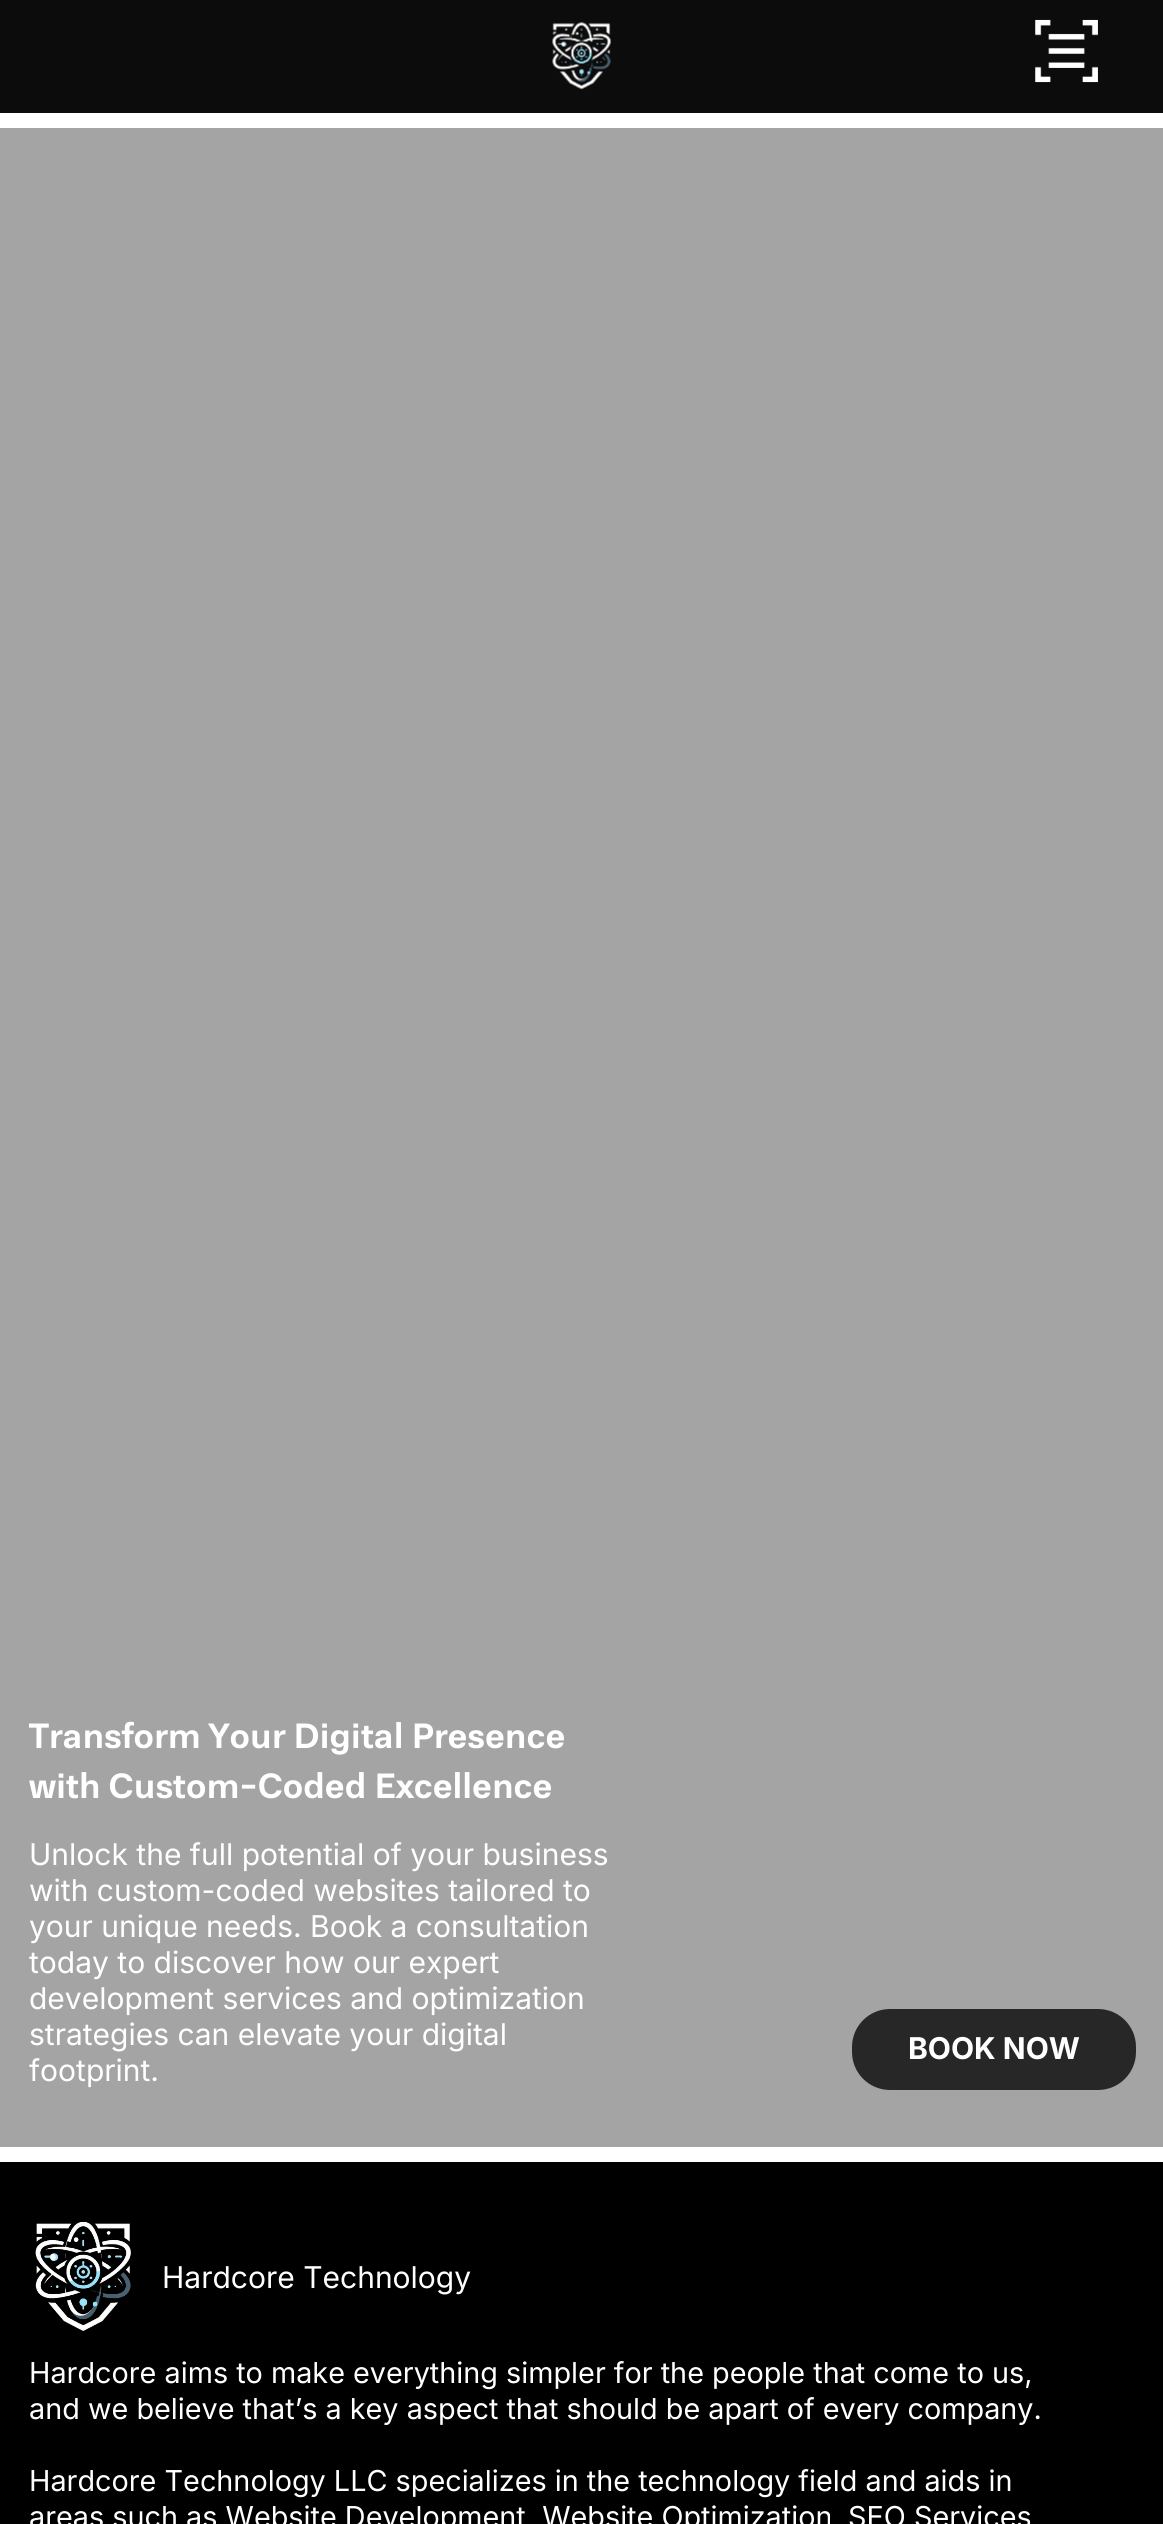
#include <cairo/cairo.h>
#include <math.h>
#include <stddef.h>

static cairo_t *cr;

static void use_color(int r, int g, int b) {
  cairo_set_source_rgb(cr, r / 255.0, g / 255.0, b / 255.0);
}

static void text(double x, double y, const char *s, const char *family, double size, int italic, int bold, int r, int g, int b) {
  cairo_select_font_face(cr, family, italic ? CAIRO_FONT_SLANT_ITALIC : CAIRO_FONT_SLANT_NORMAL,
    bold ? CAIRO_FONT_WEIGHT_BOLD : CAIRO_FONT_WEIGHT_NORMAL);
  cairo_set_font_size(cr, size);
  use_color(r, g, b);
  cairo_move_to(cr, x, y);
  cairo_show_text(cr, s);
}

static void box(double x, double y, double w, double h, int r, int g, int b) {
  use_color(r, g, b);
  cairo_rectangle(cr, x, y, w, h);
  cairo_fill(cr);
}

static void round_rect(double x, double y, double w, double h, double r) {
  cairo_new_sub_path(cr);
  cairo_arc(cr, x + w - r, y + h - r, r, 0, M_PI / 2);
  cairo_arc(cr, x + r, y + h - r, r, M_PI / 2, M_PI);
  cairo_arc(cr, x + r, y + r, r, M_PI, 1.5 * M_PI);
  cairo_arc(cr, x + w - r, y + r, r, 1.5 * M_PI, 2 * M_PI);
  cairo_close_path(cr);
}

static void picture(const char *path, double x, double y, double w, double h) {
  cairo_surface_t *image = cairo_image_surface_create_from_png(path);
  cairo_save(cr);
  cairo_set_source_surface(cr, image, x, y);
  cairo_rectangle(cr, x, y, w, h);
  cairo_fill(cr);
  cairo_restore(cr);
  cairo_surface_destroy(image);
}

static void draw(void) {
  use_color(255, 255, 255);
  cairo_paint(cr);
  box(0, 0, 1163, 113, 12, 12, 12);
  picture("img_01.png", 552, 22, 59, 68);
  picture("img_02.png", 1035, 19, 63, 64);
  box(0, 128, 1163, 2019, 164, 164, 164);
  use_color(39, 39, 39);
  round_rect(852, 2009, 284, 81, 38);
  cairo_fill(cr);
  box(0, 2162, 1163, 362, 0, 0, 0);
  picture("img_03.png", 35, 2222, 96, 109);
  text(29, 1748, "Transform Your Digital Presence", "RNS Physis", 36, 0, 1, 255, 255, 255);
  text(29, 1798, "with Custom-Coded Excellence", "RNS Physis", 36, 0, 1, 255, 255, 255);
  text(29, 1865, "Unlock the full potential of your business", "Inter", 30, 0, 0, 255, 255, 255);
  text(29, 1901, "with custom-coded websites tailored to", "Inter", 30, 0, 0, 255, 255, 255);
  text(29, 1937, "your unique needs. Book a consultation", "Inter", 30, 0, 0, 255, 255, 255);
  text(29, 1973, "today to discover how our expert", "Inter", 30, 0, 0, 255, 255, 255);
  text(29, 2009, "development services and optimization", "Inter", 30, 0, 0, 255, 255, 255);
  text(29, 2045, "strategies can elevate your digital", "Inter", 30, 0, 0, 255, 255, 255);
  text(29, 2081, "footprint.", "Inter", 30, 0, 0, 255, 255, 255);
  text(908, 2059, "BOOK NOW", "Inter", 30, 0, 1, 255, 255, 255);
  text(162, 2288, "Hardcore Technology", "Inter", 30, 0, 0, 255, 255, 255);
  text(29, 2383, "Hardcore aims to make everything simpler for the people that come to us,", "Inter", 28.8, 0, 0, 255, 255, 255);
  text(29, 2419, "and we believe that’s a key aspect that should be apart of every company.", "Inter", 28.8, 0, 0, 255, 255, 255);
  text(29, 2491, "Hardcore Technology LLC specializes in the technology field and aids in", "Inter", 28.8, 0, 0, 255, 255, 255);
  text(29, 2527, "areas such as Website Development, Website Optimization", "Inter", 28.8, 0, 0, 255, 255, 255);
  text(848, 2527, "SEO Services", "Inter", 28.8, 0, 0, 255, 255, 255);
}

int main(void) {
  cairo_surface_t *surface = cairo_image_surface_create(CAIRO_FORMAT_RGB24, 1163, 2524);
  cr = cairo_create(surface);
  cairo_font_options_t *options = cairo_font_options_create();
  cairo_font_options_set_hint_metrics(options, CAIRO_HINT_METRICS_OFF);
  cairo_font_options_set_hint_style(options, CAIRO_HINT_STYLE_NONE);
  cairo_set_font_options(cr, options);
  cairo_set_miter_limit(cr, 4);
  draw();
  cairo_surface_write_to_png(surface, "out.png");
  cairo_font_options_destroy(options);
  cairo_destroy(cr);
  cairo_surface_destroy(surface);
  return 0;
}
